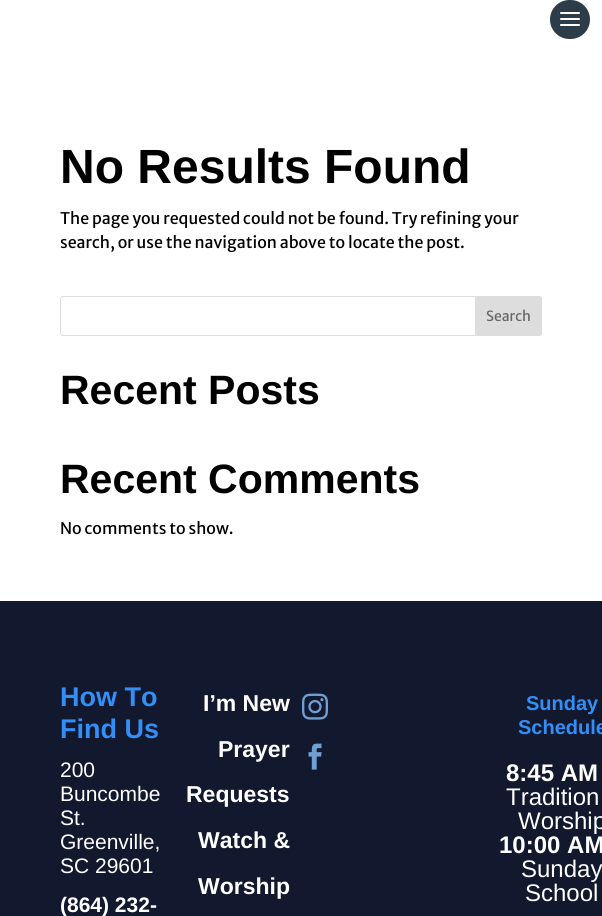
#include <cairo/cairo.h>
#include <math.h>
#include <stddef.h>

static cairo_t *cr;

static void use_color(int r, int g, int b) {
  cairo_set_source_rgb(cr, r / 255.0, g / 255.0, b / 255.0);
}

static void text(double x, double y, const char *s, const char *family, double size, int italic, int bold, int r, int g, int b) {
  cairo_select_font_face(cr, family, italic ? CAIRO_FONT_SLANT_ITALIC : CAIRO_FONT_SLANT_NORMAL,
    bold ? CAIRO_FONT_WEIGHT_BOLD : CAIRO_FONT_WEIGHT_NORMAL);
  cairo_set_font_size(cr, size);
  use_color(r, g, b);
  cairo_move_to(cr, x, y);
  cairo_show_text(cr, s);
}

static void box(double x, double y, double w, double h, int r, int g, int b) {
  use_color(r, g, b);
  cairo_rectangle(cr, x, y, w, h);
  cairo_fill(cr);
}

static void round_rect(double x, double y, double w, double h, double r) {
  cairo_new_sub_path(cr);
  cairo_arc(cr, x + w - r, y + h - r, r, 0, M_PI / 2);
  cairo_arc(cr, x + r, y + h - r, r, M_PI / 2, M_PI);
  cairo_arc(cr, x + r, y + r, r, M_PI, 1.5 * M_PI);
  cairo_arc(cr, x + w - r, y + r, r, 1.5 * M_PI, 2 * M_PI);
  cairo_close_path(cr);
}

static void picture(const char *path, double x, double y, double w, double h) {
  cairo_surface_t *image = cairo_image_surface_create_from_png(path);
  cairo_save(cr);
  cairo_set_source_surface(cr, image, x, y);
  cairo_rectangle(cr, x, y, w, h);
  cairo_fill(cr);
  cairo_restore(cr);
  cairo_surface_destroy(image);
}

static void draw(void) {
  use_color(255, 255, 255);
  cairo_paint(cr);
  use_color(44, 61, 73);
  round_rect(550, 0, 40, 39, 19.5);
  cairo_fill(cr);
  use_color(255, 255, 255);
  round_rect(560, 18, 20, 2, 1);
  cairo_fill(cr);
  round_rect(560, 12, 20, 2, 1);
  cairo_fill(cr);
  round_rect(560, 24, 20, 2, 1);
  cairo_fill(cr);
  round_rect(60.5, 296.5, 481, 39, 2.5);
  use_color(221, 221, 221);
  cairo_set_line_width(cr, 1);
  cairo_stroke(cr);
  cairo_new_path(cr);
  cairo_move_to(cr, 475.5, 296.5);
  cairo_line_to(cr, 539, 296.5);
  cairo_curve_to(cr, 540.5, 296.5, 541.5, 297.5, 541.5, 299);
  cairo_line_to(cr, 541.5, 333);
  cairo_curve_to(cr, 541.5, 334.5, 540.5, 335.5, 539, 335.5);
  cairo_line_to(cr, 475.5, 335.5);
  cairo_close_path(cr);
  cairo_fill_preserve(cr);
  cairo_stroke(cr);
  box(0, 601, 602, 315, 18, 24, 46);
  picture("img_01.png", 302, 693, 26, 27);
  picture("img_02.png", 308, 743, 14, 27);
  text(60, 183, "No Results Found", "Liberation Sans", 48, 0, 1, 0, 0, 0);
  text(60, 224, "The page you requested could not be found. Try refining your", "Merriweather Sans", 16, 0, 0, 0, 0, 0);
  text(60, 248, "search, or use the navigation above to locate the post.", "Merriweather Sans", 16, 0, 0, 0, 0, 0);
  text(486, 321, "Search", "Merriweather Sans", 14, 0, 0, 102, 102, 102);
  text(60, 404, "Recent Posts", "Liberation Sans", 41, 0, 1, 0, 0, 0);
  text(60, 493, "Recent Comments", "Liberation Sans", 41, 0, 1, 0, 0, 0);
  text(60, 534, "No comments to show.", "Merriweather Sans", 16, 0, 0, 0, 0, 0);
  text(60, 706, "How To", "Liberation Sans", 27, 0, 1, 51, 143, 248);
  text(60, 738, "Find Us", "Liberation Sans", 27, 0, 1, 51, 143, 248);
  text(60, 777, "200", "Liberation Sans", 21, 0, 0, 255, 255, 255);
  text(60, 801, "Buncombe", "Liberation Sans", 21, 0, 0, 255, 255, 255);
  text(60, 825, "St.", "Liberation Sans", 21, 0, 0, 255, 255, 255);
  text(60, 849, "Greenville,", "Liberation Sans", 21, 0, 0, 255, 255, 255);
  text(60, 873, "SC 29601", "Liberation Sans", 21, 0, 0, 255, 255, 255);
  text(60, 912, "(864) 232-", "Liberation Sans", 21, 0, 1, 255, 255, 255);
  text(203, 711, "I’m New", "Liberation Sans", 23, 0, 1, 255, 255, 255);
  text(218, 757, "Prayer", "Liberation Sans", 23, 0, 1, 255, 255, 255);
  text(186, 802, "Requests", "Liberation Sans", 23, 0, 1, 255, 255, 255);
  text(198, 848, "Watch &", "Liberation Sans", 23, 0, 1, 255, 255, 255);
  text(198, 894, "Worship", "Liberation Sans", 23, 0, 1, 255, 255, 255);
  text(526, 710, "Sunday", "Liberation Sans", 20, 0, 1, 51, 143, 248);
  text(518, 734, "Schedule", "Liberation Sans", 20, 0, 1, 51, 143, 248);
  text(506, 781, "8:45 AM", "Liberation Sans", 24, 0, 1, 255, 255, 255);
  text(506, 805, "Tradition", "Liberation Sans", 24, 0, 0, 255, 255, 255);
  text(518, 829, "Worship", "Liberation Sans", 24, 0, 0, 255, 255, 255);
  text(499, 853, "10:00 AM", "Liberation Sans", 24, 0, 1, 255, 255, 255);
  text(521, 877, "Sunday", "Liberation Sans", 24, 0, 0, 255, 255, 255);
  text(525, 901, "School", "Liberation Sans", 24, 0, 0, 255, 255, 255);
}

int main(void) {
  cairo_surface_t *surface = cairo_image_surface_create(CAIRO_FORMAT_RGB24, 602, 916);
  cr = cairo_create(surface);
  cairo_font_options_t *options = cairo_font_options_create();
  cairo_font_options_set_hint_metrics(options, CAIRO_HINT_METRICS_OFF);
  cairo_font_options_set_hint_style(options, CAIRO_HINT_STYLE_NONE);
  cairo_set_font_options(cr, options);
  cairo_set_miter_limit(cr, 4);
  draw();
  cairo_surface_write_to_png(surface, "out.png");
  cairo_font_options_destroy(options);
  cairo_destroy(cr);
  cairo_surface_destroy(surface);
  return 0;
}
